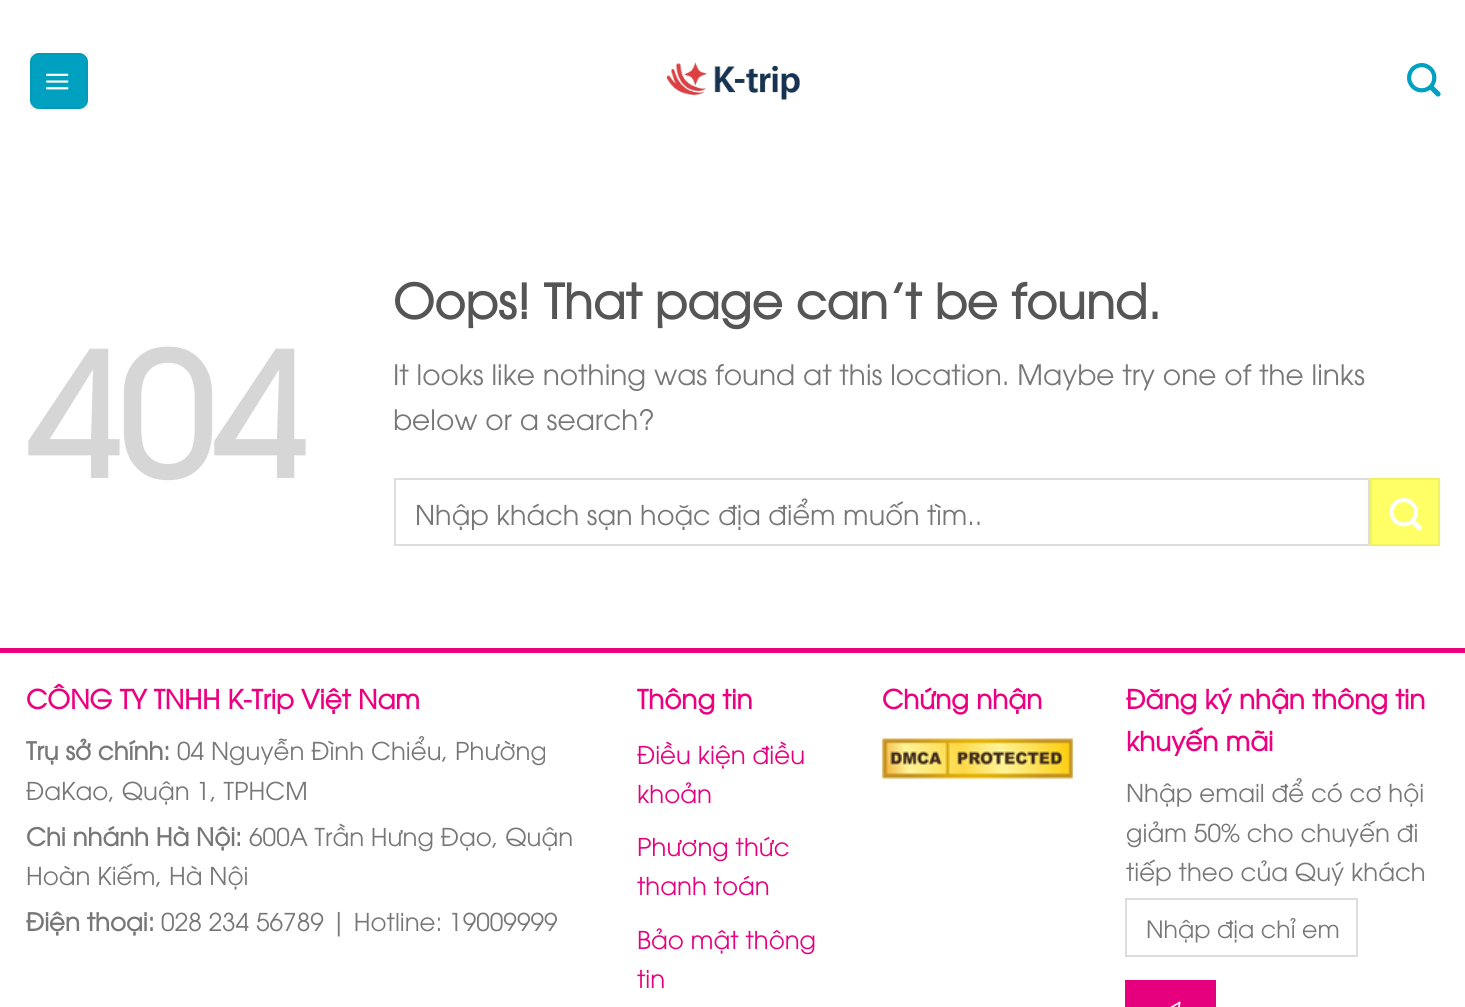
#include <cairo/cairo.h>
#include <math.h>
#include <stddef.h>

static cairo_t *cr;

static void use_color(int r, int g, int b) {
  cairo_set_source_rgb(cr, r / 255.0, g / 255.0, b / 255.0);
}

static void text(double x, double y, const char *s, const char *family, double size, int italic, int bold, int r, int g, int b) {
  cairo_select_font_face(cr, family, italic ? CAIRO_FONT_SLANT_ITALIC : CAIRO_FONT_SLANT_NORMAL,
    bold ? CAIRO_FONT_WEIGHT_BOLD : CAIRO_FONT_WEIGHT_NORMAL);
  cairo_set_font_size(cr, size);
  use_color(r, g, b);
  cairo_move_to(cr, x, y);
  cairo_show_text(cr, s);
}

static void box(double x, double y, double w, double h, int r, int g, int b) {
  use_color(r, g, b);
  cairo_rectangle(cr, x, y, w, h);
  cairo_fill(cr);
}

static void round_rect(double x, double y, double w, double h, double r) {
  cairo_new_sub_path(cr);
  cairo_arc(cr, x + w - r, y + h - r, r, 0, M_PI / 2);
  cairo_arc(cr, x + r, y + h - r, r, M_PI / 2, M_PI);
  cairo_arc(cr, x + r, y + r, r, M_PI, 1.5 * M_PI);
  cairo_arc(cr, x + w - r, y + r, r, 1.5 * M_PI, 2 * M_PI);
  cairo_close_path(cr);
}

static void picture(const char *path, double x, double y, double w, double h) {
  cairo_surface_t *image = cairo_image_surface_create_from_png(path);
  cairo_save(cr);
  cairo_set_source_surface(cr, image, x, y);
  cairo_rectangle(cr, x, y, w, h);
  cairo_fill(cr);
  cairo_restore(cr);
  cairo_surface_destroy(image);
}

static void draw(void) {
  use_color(255, 255, 255);
  cairo_paint(cr);
  use_color(0, 161, 192);
  round_rect(30, 53, 58, 56, 9);
  cairo_fill(cr);
  cairo_rectangle(cr, 31, 54, 56, 54);
  cairo_set_source_rgba(cr, 0, 0, 0, 0.05);
  cairo_stroke(cr);
  picture("img_01.png", 46, 73, 23, 17);
  picture("img_02.png", 666, 62, 134, 38);
  picture("img_03.png", 1407, 63, 34, 34);
  cairo_rectangle(cr, 395, 479, 974, 66);
  use_color(221, 221, 221);
  cairo_stroke(cr);
  use_color(255, 255, 102);
  cairo_rectangle(cr, 1371, 479, 68, 66);
  cairo_fill_preserve(cr);
  use_color(242, 242, 97);
  cairo_stroke(cr);
  picture("img_04.png", 1389, 497, 33, 34);
  box(0, 648, 1465, 5, 237, 0, 128);
  picture("img_05.png", 882, 738, 191, 41);
  cairo_rectangle(cr, 1126, 899, 231, 57);
  use_color(221, 221, 221);
  cairo_stroke(cr);
  box(1125, 980, 91, 27, 231, 0, 126);
  picture("img_06.png", 1170, 1001, 11, 6);
  text(26, 478, "404", "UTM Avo", 168, 0, 1, 214, 214, 214);
  text(393, 319, "Oops! That page can’t be found.", "UTM Avo", 47.6, 0, 1, 85, 85, 85);
  text(393, 385, "It looks like nothing was found at this location. Maybe try one of the links", "UTM Avo", 28, 0, 0, 119, 119, 119);
  text(393, 430, "below or a search?", "UTM Avo", 28, 0, 0, 119, 119, 119);
  cairo_save(cr);
  cairo_rectangle(cr, 415, 494, 927, 36);
  cairo_clip(cr);
  text(415, 525, "Nhập khách sạn hoặc địa điểm muốn tìm..", "UTM Avo", 27.2, 0, 0, 119, 119, 119);
  cairo_restore(cr);
  text(26, 709, "CÔNG TY TNHH K-Trip Việt Nam", "UTM Avo", 26.25, 0, 1, 237, 0, 128);
  text(26, 760, "Trụ sở chính:", "UTM Avo", 24.5, 0, 1, 119, 119, 119);
  text(177, 760, "04 Nguyễn Đình Chiểu, Phường", "UTM Avo", 24.5, 0, 0, 119, 119, 119);
  text(26, 800, "ĐaKao, Quận 1, TPHCM", "UTM Avo", 24.5, 0, 0, 119, 119, 119);
  text(26, 846, "Chi nhánh Hà Nội:", "UTM Avo", 24.5, 0, 1, 119, 119, 119);
  text(249, 846, "600A Trần Hưng Đạo, Quận", "UTM Avo", 24.5, 0, 0, 119, 119, 119);
  text(26, 885, "Hoàn Kiếm, Hà Nội", "UTM Avo", 24.5, 0, 0, 119, 119, 119);
  text(26, 931, "Điện thoại:", "UTM Avo", 24.5, 0, 1, 119, 119, 119);
  text(161, 931, "028 234 56789 | Hotline: 19009999", "UTM Avo", 24.5, 0, 0, 119, 119, 119);
  text(637, 709, "Thông tin", "UTM Avo", 26.25, 0, 1, 237, 0, 128);
  text(637, 764, "Điều kiện điều", "UTM Avo", 24.5, 0, 0, 231, 0, 126);
  text(637, 803, "khoản", "UTM Avo", 24.5, 0, 0, 231, 0, 126);
  text(637, 856, "Phương thức", "UTM Avo", 24.5, 0, 0, 231, 0, 126);
  text(637, 895, "thanh toán", "UTM Avo", 24.5, 0, 0, 231, 0, 126);
  text(637, 949, "Bảo mật thông", "UTM Avo", 24.5, 0, 0, 231, 0, 126);
  text(637, 988, "tin", "UTM Avo", 24.5, 0, 0, 231, 0, 126);
  text(882, 709, "Chứng nhận", "UTM Avo", 26.25, 0, 1, 237, 0, 128);
  text(1126, 709, "Đăng ký nhận thông tin", "UTM Avo", 26.25, 0, 1, 237, 0, 128);
  text(1126, 751, "khuyến mãi", "UTM Avo", 26.25, 0, 1, 237, 0, 128);
  text(1126, 802, "Nhập email để có cơ hội", "UTM Avo", 24.5, 0, 0, 119, 119, 119);
  text(1126, 842, "giảm 50% cho chuyến đi", "UTM Avo", 24.5, 0, 0, 119, 119, 119);
  text(1126, 881, "tiếp theo của Quý khách", "UTM Avo", 24.5, 0, 0, 119, 119, 119);
  text(1146, 938, "Nhập địa chỉ em", "UTM Avo", 23.75, 0, 0, 119, 119, 119);
}

int main(void) {
  cairo_surface_t *surface = cairo_image_surface_create(CAIRO_FORMAT_RGB24, 1465, 1007);
  cr = cairo_create(surface);
  cairo_font_options_t *options = cairo_font_options_create();
  cairo_font_options_set_hint_metrics(options, CAIRO_HINT_METRICS_OFF);
  cairo_font_options_set_hint_style(options, CAIRO_HINT_STYLE_NONE);
  cairo_set_font_options(cr, options);
  cairo_set_miter_limit(cr, 4);
  draw();
  cairo_surface_write_to_png(surface, "out.png");
  cairo_font_options_destroy(options);
  cairo_destroy(cr);
  cairo_surface_destroy(surface);
  return 0;
}
